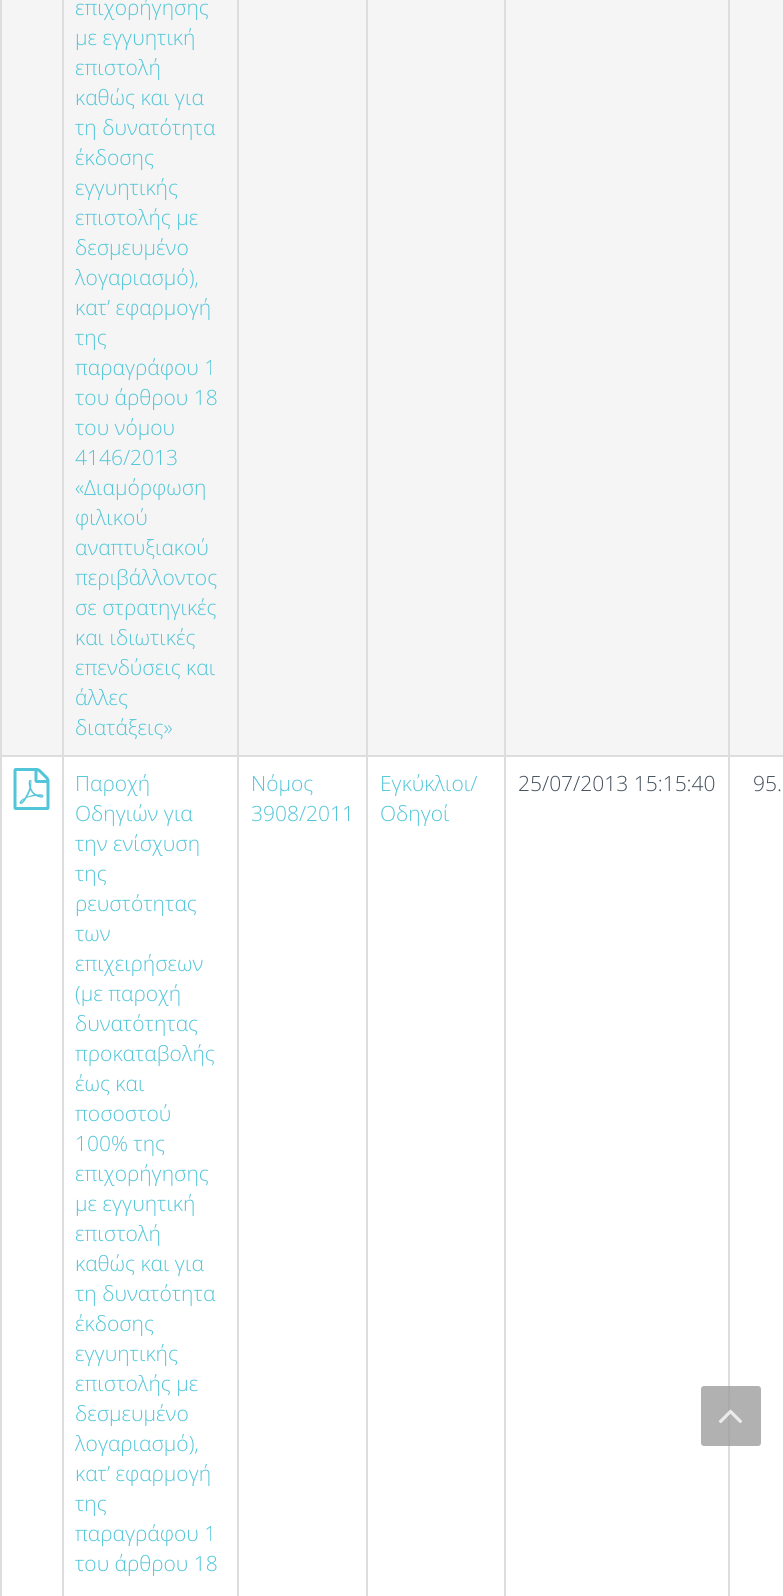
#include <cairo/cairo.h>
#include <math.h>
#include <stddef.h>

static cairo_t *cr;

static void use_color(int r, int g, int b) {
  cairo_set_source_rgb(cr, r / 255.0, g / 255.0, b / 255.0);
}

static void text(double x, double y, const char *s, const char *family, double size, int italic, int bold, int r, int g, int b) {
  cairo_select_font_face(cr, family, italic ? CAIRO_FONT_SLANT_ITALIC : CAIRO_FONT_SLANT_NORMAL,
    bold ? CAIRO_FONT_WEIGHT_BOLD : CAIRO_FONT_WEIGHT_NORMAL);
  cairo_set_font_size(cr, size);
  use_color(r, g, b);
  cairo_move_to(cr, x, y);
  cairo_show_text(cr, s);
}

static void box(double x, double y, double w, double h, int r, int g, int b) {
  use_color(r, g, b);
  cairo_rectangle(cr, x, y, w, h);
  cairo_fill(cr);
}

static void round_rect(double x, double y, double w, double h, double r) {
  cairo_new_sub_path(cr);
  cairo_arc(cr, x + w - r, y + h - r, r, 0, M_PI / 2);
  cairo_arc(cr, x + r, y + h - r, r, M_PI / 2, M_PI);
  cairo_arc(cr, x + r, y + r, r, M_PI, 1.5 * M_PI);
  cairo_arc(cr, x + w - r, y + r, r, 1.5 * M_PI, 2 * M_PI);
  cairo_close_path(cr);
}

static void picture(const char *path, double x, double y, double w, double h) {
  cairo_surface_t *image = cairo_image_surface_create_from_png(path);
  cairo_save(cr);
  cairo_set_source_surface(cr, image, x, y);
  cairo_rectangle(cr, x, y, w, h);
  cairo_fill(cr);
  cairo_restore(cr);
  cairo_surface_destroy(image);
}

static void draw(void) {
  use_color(255, 255, 255);
  cairo_paint(cr);
  box(0, 0, 2, 1596, 221, 221, 221);
  box(2, 0, 781, 755, 245, 245, 245);
  box(728, 755, 55, 2, 221, 221, 221);
  box(728, 755, 2, 841, 221, 221, 221);
  box(504, 755, 225, 2, 221, 221, 221);
  box(504, 755, 2, 841, 221, 221, 221);
  box(366, 755, 140, 2, 221, 221, 221);
  box(366, 755, 2, 841, 221, 221, 221);
  box(237, 755, 131, 2, 221, 221, 221);
  box(237, 755, 2, 841, 221, 221, 221);
  box(62, 755, 177, 2, 221, 221, 221);
  box(62, 755, 2, 841, 221, 221, 221);
  box(0, 755, 63, 2, 221, 221, 221);
  box(62, 0, 2, 756, 221, 221, 221);
  box(237, 0, 2, 756, 221, 221, 221);
  box(366, 0, 2, 756, 221, 221, 221);
  box(504, 0, 2, 756, 221, 221, 221);
  box(728, 0, 2, 756, 221, 221, 221);
  picture("img_01.png", 13, 768, 37, 42);
  cairo_set_source_rgba(cr, 0.62, 0.62, 0.62, 0.8);
  round_rect(701, 1386, 60, 60, 3);
  cairo_fill(cr);
  picture("img_02.png", 718, 1409, 25, 15);
  text(75, 15, "επιχορήγησης", "Open Sans Light", 21, 0, 0, 82, 198, 216);
  text(75, 45, "µε εγγυητική", "Open Sans Light", 21, 0, 0, 82, 198, 216);
  text(75, 75, "επιστολή", "Open Sans Light", 21, 0, 0, 82, 198, 216);
  text(75, 105, "καθώς και για", "Open Sans Light", 21, 0, 0, 82, 198, 216);
  text(75, 135, "τη δυνατότητα", "Open Sans Light", 21, 0, 0, 82, 198, 216);
  text(75, 165, "έκδοσης", "Open Sans Light", 21, 0, 0, 82, 198, 216);
  text(75, 195, "εγγυητικής", "Open Sans Light", 21, 0, 0, 82, 198, 216);
  text(75, 225, "επιστολής µε", "Open Sans Light", 21, 0, 0, 82, 198, 216);
  text(75, 255, "δεσµευµένο", "Open Sans Light", 21, 0, 0, 82, 198, 216);
  text(75, 285, "λογαριασµό),", "Open Sans Light", 21, 0, 0, 82, 198, 216);
  text(75, 315, "κατ’ εφαρµογή", "Open Sans Light", 21, 0, 0, 82, 198, 216);
  text(75, 345, "της", "Open Sans Light", 21, 0, 0, 82, 198, 216);
  text(75, 375, "παραγράφου 1", "Open Sans Light", 21, 0, 0, 82, 198, 216);
  text(75, 405, "του άρθρου 18", "Open Sans Light", 21, 0, 0, 82, 198, 216);
  text(75, 435, "του νόµου", "Open Sans Light", 21, 0, 0, 82, 198, 216);
  text(75, 465, "4146/2013", "Open Sans Light", 21, 0, 0, 82, 198, 216);
  text(75, 495, "«∆ιαµόρφωση", "Open Sans Light", 21, 0, 0, 82, 198, 216);
  text(75, 525, "φιλικού", "Open Sans Light", 21, 0, 0, 82, 198, 216);
  text(75, 555, "αναπτυξιακού", "Open Sans Light", 21, 0, 0, 82, 198, 216);
  text(75, 585, "περιβάλλοντος", "Open Sans Light", 21, 0, 0, 82, 198, 216);
  text(75, 615, "σε στρατηγικές", "Open Sans Light", 21, 0, 0, 82, 198, 216);
  text(75, 645, "και ιδιωτικές", "Open Sans Light", 21, 0, 0, 82, 198, 216);
  text(75, 675, "επενδύσεις και", "Open Sans Light", 21, 0, 0, 82, 198, 216);
  text(75, 705, "άλλες", "Open Sans Light", 21, 0, 0, 82, 198, 216);
  text(75, 735, "διατάξεις»", "Open Sans Light", 21, 0, 0, 82, 198, 216);
  text(75, 791, "Παροχή", "Open Sans Light", 21, 0, 0, 82, 198, 216);
  text(75, 821, "Οδηγιών για", "Open Sans Light", 21, 0, 0, 82, 198, 216);
  text(75, 851, "την ενίσχυση", "Open Sans Light", 21, 0, 0, 82, 198, 216);
  text(75, 881, "της", "Open Sans Light", 21, 0, 0, 82, 198, 216);
  text(75, 911, "ρευστότητας", "Open Sans Light", 21, 0, 0, 82, 198, 216);
  text(75, 941, "των", "Open Sans Light", 21, 0, 0, 82, 198, 216);
  text(75, 971, "επιχειρήσεων", "Open Sans Light", 21, 0, 0, 82, 198, 216);
  text(75, 1001, "(µε παροχή", "Open Sans Light", 21, 0, 0, 82, 198, 216);
  text(75, 1031, "δυνατότητας", "Open Sans Light", 21, 0, 0, 82, 198, 216);
  text(75, 1061, "προκαταβολής", "Open Sans Light", 21, 0, 0, 82, 198, 216);
  text(75, 1091, "έως και", "Open Sans Light", 21, 0, 0, 82, 198, 216);
  text(75, 1121, "ποσοστού", "Open Sans Light", 21, 0, 0, 82, 198, 216);
  text(75, 1151, "100% της", "Open Sans Light", 21, 0, 0, 82, 198, 216);
  text(75, 1181, "επιχορήγησης", "Open Sans Light", 21, 0, 0, 82, 198, 216);
  text(75, 1211, "µε εγγυητική", "Open Sans Light", 21, 0, 0, 82, 198, 216);
  text(75, 1241, "επιστολή", "Open Sans Light", 21, 0, 0, 82, 198, 216);
  text(75, 1271, "καθώς και για", "Open Sans Light", 21, 0, 0, 82, 198, 216);
  text(75, 1301, "τη δυνατότητα", "Open Sans Light", 21, 0, 0, 82, 198, 216);
  text(75, 1331, "έκδοσης", "Open Sans Light", 21, 0, 0, 82, 198, 216);
  text(75, 1361, "εγγυητικής", "Open Sans Light", 21, 0, 0, 82, 198, 216);
  text(75, 1391, "επιστολής µε", "Open Sans Light", 21, 0, 0, 82, 198, 216);
  text(75, 1421, "δεσµευµένο", "Open Sans Light", 21, 0, 0, 82, 198, 216);
  text(75, 1451, "λογαριασµό),", "Open Sans Light", 21, 0, 0, 82, 198, 216);
  text(75, 1481, "κατ’ εφαρµογή", "Open Sans Light", 21, 0, 0, 82, 198, 216);
  text(75, 1511, "της", "Open Sans Light", 21, 0, 0, 82, 198, 216);
  text(75, 1541, "παραγράφου 1", "Open Sans Light", 21, 0, 0, 82, 198, 216);
  text(75, 1571, "του άρθρου 18", "Open Sans Light", 21, 0, 0, 82, 198, 216);
  text(251, 791, "Νόμος", "Open Sans Light", 21, 0, 0, 82, 198, 216);
  text(251, 821, "3908/2011", "Open Sans Light", 21, 0, 0, 82, 198, 216);
  text(380, 791, "Εγκύκλιοι/", "Open Sans Light", 21, 0, 0, 82, 198, 216);
  text(380, 821, "Οδηγοί", "Open Sans Light", 21, 0, 0, 82, 198, 216);
  text(518, 791, "25/07/2013 15:15:40", "Open Sans Light", 21, 0, 0, 66, 78, 90);
  text(753, 791, "95.", "Open Sans Light", 21, 0, 0, 66, 78, 90);
}

int main(void) {
  cairo_surface_t *surface = cairo_image_surface_create(CAIRO_FORMAT_RGB24, 783, 1596);
  cr = cairo_create(surface);
  cairo_font_options_t *options = cairo_font_options_create();
  cairo_font_options_set_hint_metrics(options, CAIRO_HINT_METRICS_OFF);
  cairo_font_options_set_hint_style(options, CAIRO_HINT_STYLE_NONE);
  cairo_set_font_options(cr, options);
  cairo_set_miter_limit(cr, 4);
  draw();
  cairo_surface_write_to_png(surface, "out.png");
  cairo_font_options_destroy(options);
  cairo_destroy(cr);
  cairo_surface_destroy(surface);
  return 0;
}
